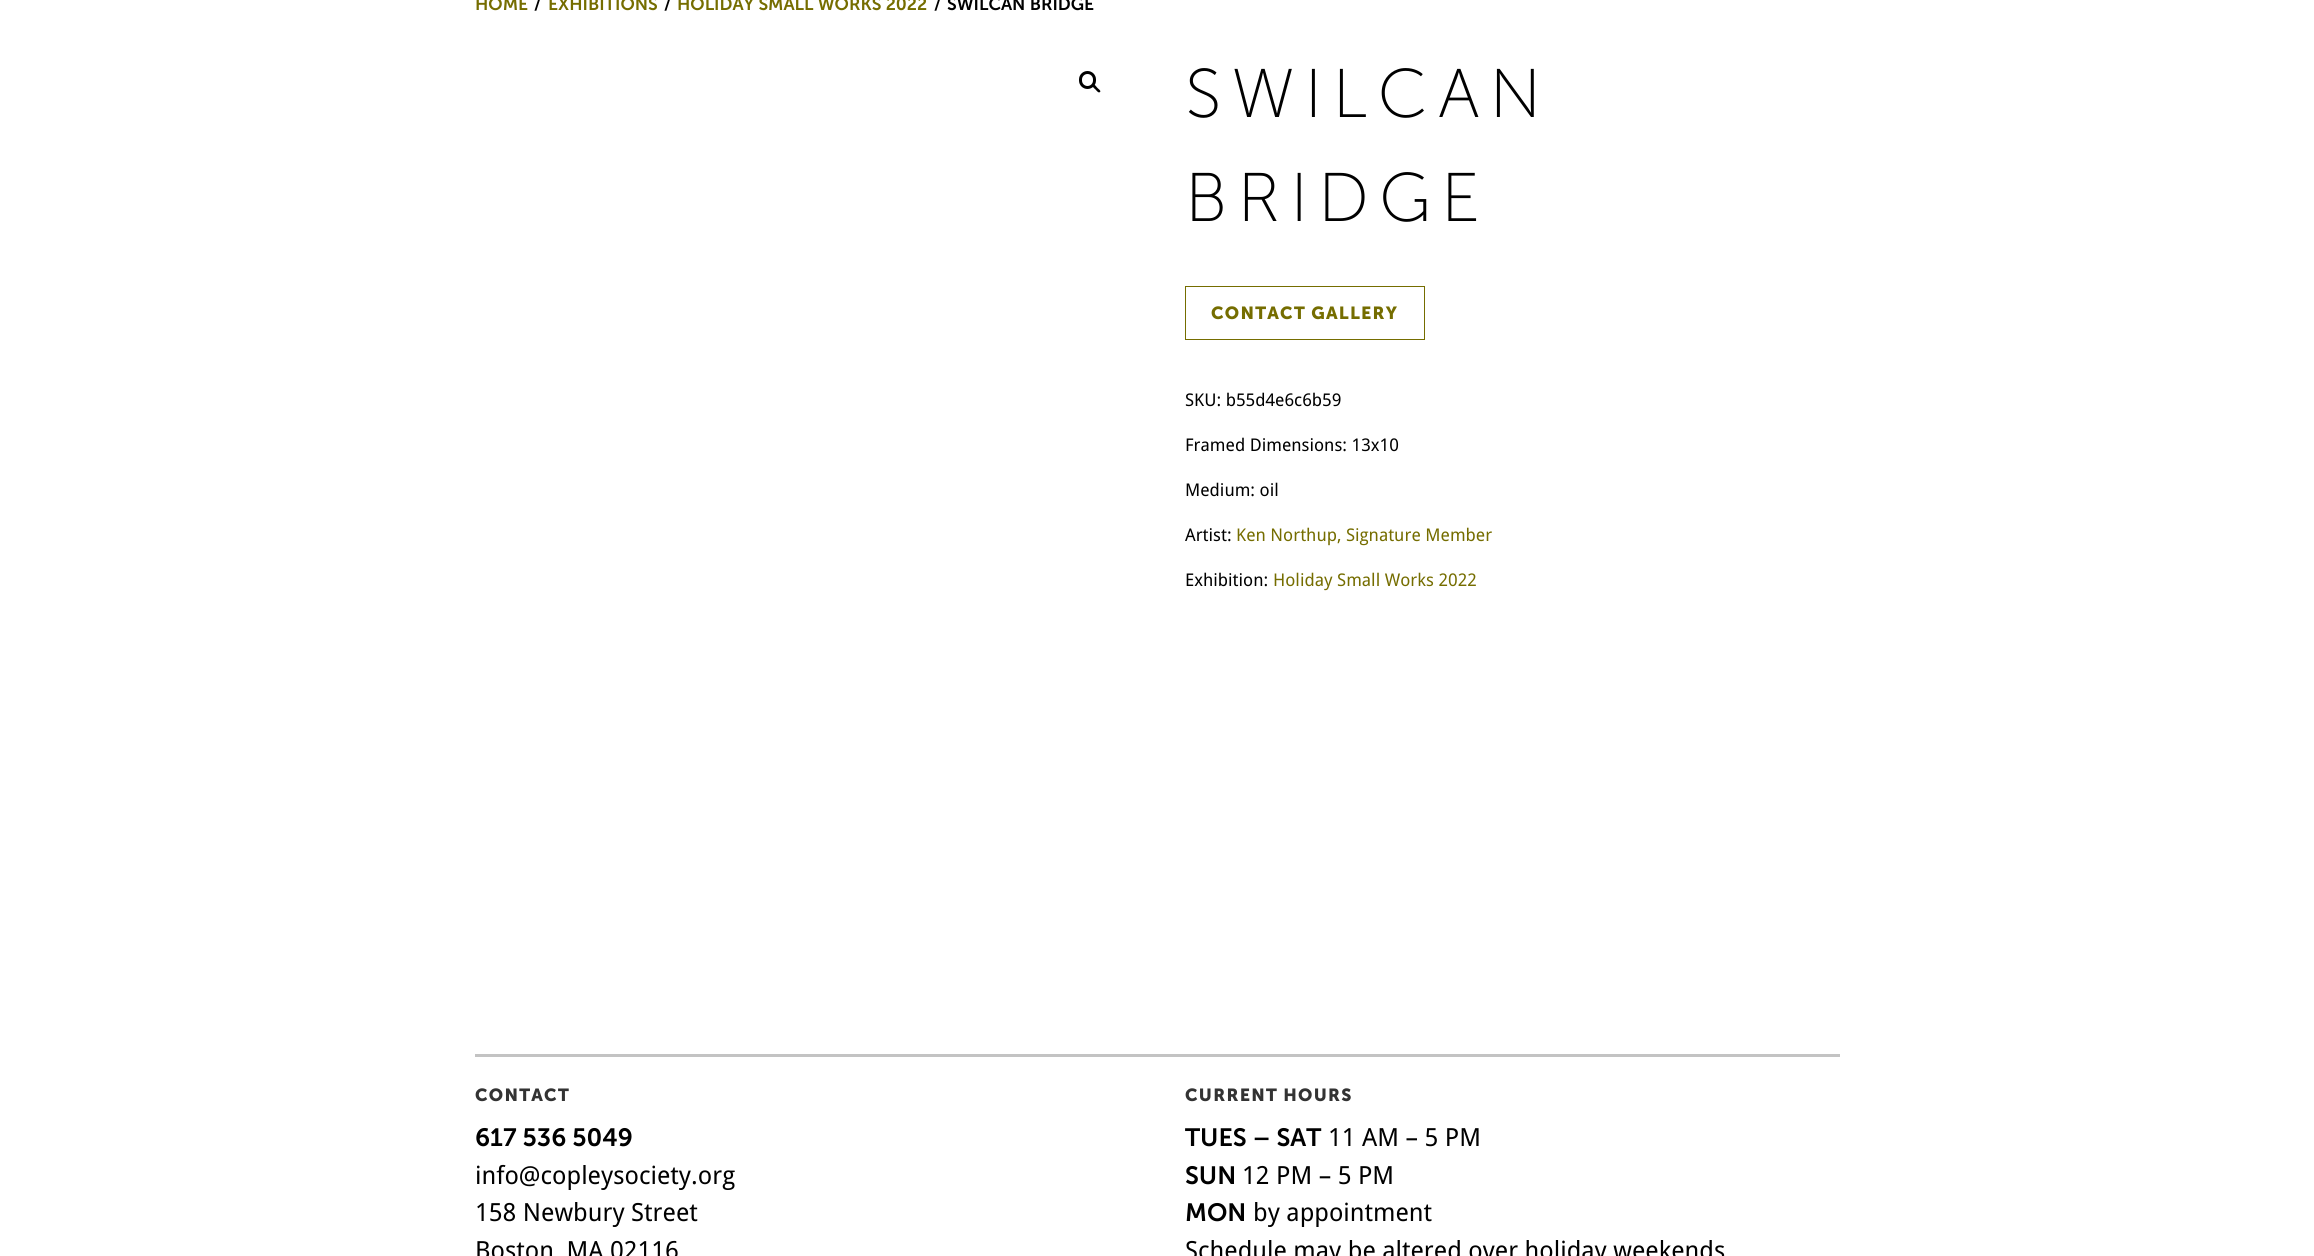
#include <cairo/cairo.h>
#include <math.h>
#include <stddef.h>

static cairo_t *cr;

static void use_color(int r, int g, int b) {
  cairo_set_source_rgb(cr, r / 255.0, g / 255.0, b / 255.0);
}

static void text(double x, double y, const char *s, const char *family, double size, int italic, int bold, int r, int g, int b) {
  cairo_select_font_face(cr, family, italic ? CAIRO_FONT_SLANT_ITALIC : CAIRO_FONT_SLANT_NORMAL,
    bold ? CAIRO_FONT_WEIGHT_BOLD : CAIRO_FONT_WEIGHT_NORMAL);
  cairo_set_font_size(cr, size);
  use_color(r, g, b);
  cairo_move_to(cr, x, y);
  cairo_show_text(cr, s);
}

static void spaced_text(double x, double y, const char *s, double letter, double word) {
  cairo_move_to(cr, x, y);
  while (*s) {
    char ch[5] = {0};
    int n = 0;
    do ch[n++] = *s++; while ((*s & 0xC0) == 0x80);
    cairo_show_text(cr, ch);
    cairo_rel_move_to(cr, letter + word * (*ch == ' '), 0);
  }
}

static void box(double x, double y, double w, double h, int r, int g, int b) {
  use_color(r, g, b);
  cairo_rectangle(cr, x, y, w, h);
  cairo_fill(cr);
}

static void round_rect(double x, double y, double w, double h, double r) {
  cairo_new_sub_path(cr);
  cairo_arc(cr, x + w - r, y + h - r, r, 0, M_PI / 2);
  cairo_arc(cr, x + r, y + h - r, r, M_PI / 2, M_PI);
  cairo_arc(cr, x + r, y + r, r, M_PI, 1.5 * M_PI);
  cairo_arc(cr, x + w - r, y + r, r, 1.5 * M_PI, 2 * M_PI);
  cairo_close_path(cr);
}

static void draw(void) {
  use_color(255, 255, 255);
  cairo_paint(cr);
  round_rect(1080.5, 72.5, 14, 15, 7);
  use_color(0, 0, 0);
  cairo_set_line_width(cr, 3);
  cairo_stroke(cr);
  cairo_new_path(cr);
  cairo_move_to(cr, 1093, 85);
  cairo_curve_to(cr, 1094.5, 83.5, 1096.5, 87, 1097.5, 88);
  cairo_curve_to(cr, 1098, 88.5, 1101.5, 91, 1100, 92);
  cairo_curve_to(cr, 1098.5, 93.5, 1096.5, 90.5, 1095.5, 89.5);
  cairo_curve_to(cr, 1095, 89, 1091.5, 86.5, 1093, 85);
  cairo_close_path(cr);
  cairo_fill(cr);
  cairo_rectangle(cr, 1185.5, 286.5, 239, 53);
  use_color(117, 109, 0);
  cairo_set_line_width(cr, 1);
  cairo_stroke(cr);
  box(475, 1054, 1365, 3, 195, 195, 195);
  text(475, 10, "HOME", "Museo Sans SemiBold", 17.5, 0, 0, 117, 109, 0);
  text(534, 10, "/", "Museo Sans SemiBold", 17.5, 0, 0, 0, 0, 0);
  text(548, 10, "EXHIBITIONS", "Museo Sans SemiBold", 17.5, 0, 0, 117, 109, 0);
  text(664, 10, "/", "Museo Sans SemiBold", 17.5, 0, 0, 0, 0, 0);
  text(677, 10, "HOLIDAY SMALL WORKS 2022", "Museo Sans SemiBold", 17.5, 0, 0, 117, 109, 0);
  text(934, 10, "/", "Museo Sans SemiBold", 17.5, 0, 0, 0, 0, 0);
  text(947, 10, "SWILCAN BRIDGE", "Museo Sans SemiBold", 17.5, 0, 0, 0, 0, 0);
  cairo_select_font_face(cr, "Museo Sans ExtraLight", CAIRO_FONT_SLANT_NORMAL, CAIRO_FONT_WEIGHT_NORMAL);
  cairo_set_font_size(cr, 68.75);
  spaced_text(1185, 117, "SWILCAN", 10, 0);
  spaced_text(1185, 221, "BRIDGE", 10, 0);
  cairo_select_font_face(cr, "Museo Sans", CAIRO_FONT_SLANT_NORMAL, CAIRO_FONT_WEIGHT_BOLD);
  cairo_set_font_size(cr, 17.5);
  use_color(117, 109, 0);
  spaced_text(1211, 319, "CONTACT GALLERY", 1.25, 0);
  text(1185, 406, "SKU: b55d4e6c6b59", "Droid Sans", 17.5, 0, 0, 0, 0, 0);
  text(1185, 451, "Framed Dimensions: 13x10", "Droid Sans", 17.5, 0, 0, 0, 0, 0);
  text(1185, 496, "Medium: oil", "Droid Sans", 17.5, 0, 0, 0, 0, 0);
  text(1185, 541, "Artist:", "Droid Sans", 17.5, 0, 0, 0, 0, 0);
  text(1236, 541, "Ken Northup, Signature Member", "Droid Sans", 17.5, 0, 0, 117, 109, 0);
  text(1185, 586, "Exhibition:", "Droid Sans", 17.5, 0, 0, 0, 0, 0);
  text(1273, 586, "Holiday Small Works 2022", "Droid Sans", 17.5, 0, 0, 117, 109, 0);
  cairo_select_font_face(cr, "Museo Sans", CAIRO_FONT_SLANT_NORMAL, CAIRO_FONT_WEIGHT_BOLD);
  use_color(51, 51, 51);
  spaced_text(475, 1101, "CONTACT", 1.25, 0);
  text(475, 1146, "617 536 5049", "Museo Sans SemiBold", 25, 0, 0, 0, 0, 0);
  text(475, 1184, "info@copleysociety.org", "Droid Sans", 25, 0, 0, 0, 0, 0);
  text(475, 1221, "158 Newbury Street", "Droid Sans", 25, 0, 0, 0, 0, 0);
  text(475, 1259, "Boston, MA 02116", "Droid Sans", 25, 0, 0, 0, 0, 0);
  cairo_select_font_face(cr, "Museo Sans", CAIRO_FONT_SLANT_NORMAL, CAIRO_FONT_WEIGHT_BOLD);
  cairo_set_font_size(cr, 17.5);
  use_color(51, 51, 51);
  spaced_text(1185, 1101, "CURRENT HOURS", 1.25, 0);
  text(1185, 1146, "TUES – SAT", "Museo Sans SemiBold", 25, 0, 0, 0, 0, 0);
  text(1328, 1146, "11 AM – 5 PM", "Droid Sans", 25, 0, 0, 0, 0, 0);
  text(1185, 1184, "SUN", "Museo Sans SemiBold", 25, 0, 0, 0, 0, 0);
  text(1242, 1184, "12 PM – 5 PM", "Droid Sans", 25, 0, 0, 0, 0, 0);
  text(1185, 1221, "MON", "Museo Sans SemiBold", 25, 0, 0, 0, 0, 0);
  text(1253, 1221, "by appointment", "Droid Sans", 25, 0, 0, 0, 0, 0);
  text(1185, 1259, "Schedule may be altered over holiday weekends", "Droid Sans", 25, 0, 0, 0, 0, 0);
}

int main(void) {
  cairo_surface_t *surface = cairo_image_surface_create(CAIRO_FORMAT_RGB24, 2314, 1256);
  cr = cairo_create(surface);
  cairo_font_options_t *options = cairo_font_options_create();
  cairo_font_options_set_hint_metrics(options, CAIRO_HINT_METRICS_OFF);
  cairo_font_options_set_hint_style(options, CAIRO_HINT_STYLE_NONE);
  cairo_set_font_options(cr, options);
  cairo_set_miter_limit(cr, 4);
  draw();
  cairo_surface_write_to_png(surface, "out.png");
  cairo_font_options_destroy(options);
  cairo_destroy(cr);
  cairo_surface_destroy(surface);
  return 0;
}
